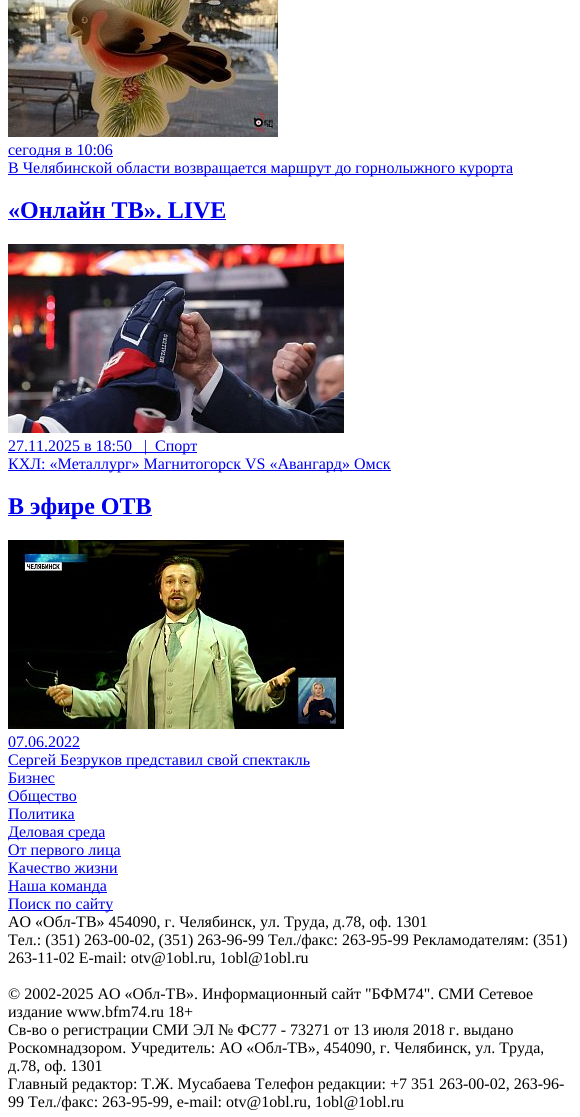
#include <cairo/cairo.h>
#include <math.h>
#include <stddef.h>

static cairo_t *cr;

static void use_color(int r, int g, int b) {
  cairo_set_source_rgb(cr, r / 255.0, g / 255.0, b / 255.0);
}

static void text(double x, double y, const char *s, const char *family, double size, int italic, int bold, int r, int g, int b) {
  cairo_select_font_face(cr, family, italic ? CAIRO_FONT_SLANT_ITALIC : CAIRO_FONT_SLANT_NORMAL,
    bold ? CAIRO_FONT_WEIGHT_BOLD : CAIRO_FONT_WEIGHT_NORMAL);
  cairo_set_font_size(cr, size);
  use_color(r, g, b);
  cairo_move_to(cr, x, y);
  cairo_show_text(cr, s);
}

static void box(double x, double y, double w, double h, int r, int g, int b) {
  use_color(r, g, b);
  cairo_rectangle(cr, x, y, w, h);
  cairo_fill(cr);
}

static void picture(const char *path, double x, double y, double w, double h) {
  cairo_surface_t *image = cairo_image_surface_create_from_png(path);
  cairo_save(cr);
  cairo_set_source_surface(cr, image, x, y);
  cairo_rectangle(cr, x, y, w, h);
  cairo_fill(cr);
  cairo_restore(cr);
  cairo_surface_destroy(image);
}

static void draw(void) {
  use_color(255, 255, 255);
  cairo_paint(cr);
  picture("img_01.png", 8, 0, 270, 137);
  box(8, 156, 105, 1, 0, 0, 238);
  box(8, 174, 505, 1, 0, 0, 238);
  box(8, 219, 218, 1, 0, 0, 238);
  picture("img_02.png", 8, 244, 336, 189);
  box(8, 452, 189, 1, 0, 0, 238);
  box(8, 470, 383, 1, 0, 0, 238);
  box(8, 515, 144, 1, 0, 0, 238);
  picture("img_03.png", 8, 540, 336, 189);
  box(8, 748, 72, 1, 0, 0, 238);
  box(8, 766, 302, 1, 0, 0, 238);
  box(8, 784, 47, 1, 0, 0, 238);
  box(8, 802, 69, 1, 0, 0, 238);
  box(8, 820, 67, 1, 0, 0, 238);
  box(8, 838, 97, 1, 0, 0, 238);
  box(8, 856, 113, 1, 0, 0, 238);
  box(8, 874, 110, 1, 0, 0, 238);
  box(8, 892, 99, 1, 0, 0, 238);
  box(8, 910, 105, 1, 0, 0, 238);
  text(8, 155, "сегодня в 10:06", "Liberation Serif", 16, 0, 0, 0, 0, 238);
  text(8, 173, "В Челябинской области возвращается маршрут до горнолыжного курорта", "Liberation Serif", 16, 0, 0, 0, 0, 238);
  text(8, 218, "«Онлайн ТВ». LIVE", "Liberation Serif", 24, 0, 1, 0, 0, 238);
  text(8, 451, "27.11.2025 в 18:50", "Liberation Serif", 16, 0, 0, 0, 0, 238);
  text(144, 451, "|", "Liberation Serif", 16, 0, 0, 0, 0, 238);
  text(155, 451, "Спорт", "Liberation Serif", 16, 0, 0, 0, 0, 238);
  text(8, 469, "КХЛ: «Металлург» Магнитогорск VS «Авангард» Омск", "Liberation Serif", 16, 0, 0, 0, 0, 238);
  text(8, 514, "В эфире ОТВ", "Liberation Serif", 24, 0, 1, 0, 0, 238);
  text(8, 747, "07.06.2022", "Liberation Serif", 16, 0, 0, 0, 0, 238);
  text(8, 765, "Сергей Безруков представил свой спектакль", "Liberation Serif", 16, 0, 0, 0, 0, 238);
  text(8, 783, "Бизнес", "Liberation Serif", 16, 0, 0, 0, 0, 238);
  text(8, 801, "Общество", "Liberation Serif", 16, 0, 0, 0, 0, 238);
  text(8, 819, "Политика", "Liberation Serif", 16, 0, 0, 0, 0, 238);
  text(8, 837, "Деловая среда", "Liberation Serif", 16, 0, 0, 0, 0, 238);
  text(8, 855, "От первого лица", "Liberation Serif", 16, 0, 0, 0, 0, 238);
  text(8, 873, "Качество жизни", "Liberation Serif", 16, 0, 0, 0, 0, 238);
  text(8, 891, "Наша команда", "Liberation Serif", 16, 0, 0, 0, 0, 238);
  text(8, 909, "Поиск по сайту", "Liberation Serif", 16, 0, 0, 0, 0, 238);
  text(8, 927, "АО «Обл-ТВ» 454090, г. Челябинск, ул. Труда, д.78, оф. 1301", "Liberation Serif", 16, 0, 0, 0, 0, 0);
  text(8, 945, "Тел.: (351) 263-00-02, (351) 263-96-99 Тел./факс: 263-95-99 Рекламодателям: (351)", "Liberation Serif", 16, 0, 0, 0, 0, 0);
  text(8, 963, "263-11-02 E-mail: otv@1obl.ru, 1obl@1obl.ru", "Liberation Serif", 16, 0, 0, 0, 0, 0);
  text(8, 999, "© 2002-2025 АО «Обл-ТВ». Информационный сайт \"БФМ74\". СМИ Сетевое", "Liberation Serif", 16, 0, 0, 0, 0, 0);
  text(8, 1017, "издание www.bfm74.ru 18+", "Liberation Serif", 16, 0, 0, 0, 0, 0);
  text(8, 1035, "Св-во о регистрации СМИ ЭЛ № ФС77 - 73271 от 13 июля 2018 г. выдано", "Liberation Serif", 16, 0, 0, 0, 0, 0);
  text(8, 1053, "Роскомнадзором. Учредитель: АО «Обл-ТВ», 454090, г. Челябинск, ул. Труда,", "Liberation Serif", 16, 0, 0, 0, 0, 0);
  text(8, 1071, "д.78, оф. 1301", "Liberation Serif", 16, 0, 0, 0, 0, 0);
  text(8, 1089, "Главный редактор: Т.Ж. Мусабаева Телефон редакции: +7 351 263-00-02, 263-96-", "Liberation Serif", 16, 0, 0, 0, 0, 0);
  text(8, 1107, "99 Тел./факс: 263-95-99, e-mail: otv@1obl.ru, 1obl@1obl.ru", "Liberation Serif", 16, 0, 0, 0, 0, 0);
}

int main(void) {
  cairo_surface_t *surface = cairo_image_surface_create(CAIRO_FORMAT_RGB24, 580, 1117);
  cr = cairo_create(surface);
  cairo_font_options_t *options = cairo_font_options_create();
  cairo_font_options_set_hint_metrics(options, CAIRO_HINT_METRICS_OFF);
  cairo_font_options_set_hint_style(options, CAIRO_HINT_STYLE_NONE);
  cairo_set_font_options(cr, options);
  cairo_set_miter_limit(cr, 4);
  draw();
  cairo_surface_write_to_png(surface, "out.png");
  cairo_font_options_destroy(options);
  cairo_destroy(cr);
  cairo_surface_destroy(surface);
  return 0;
}
